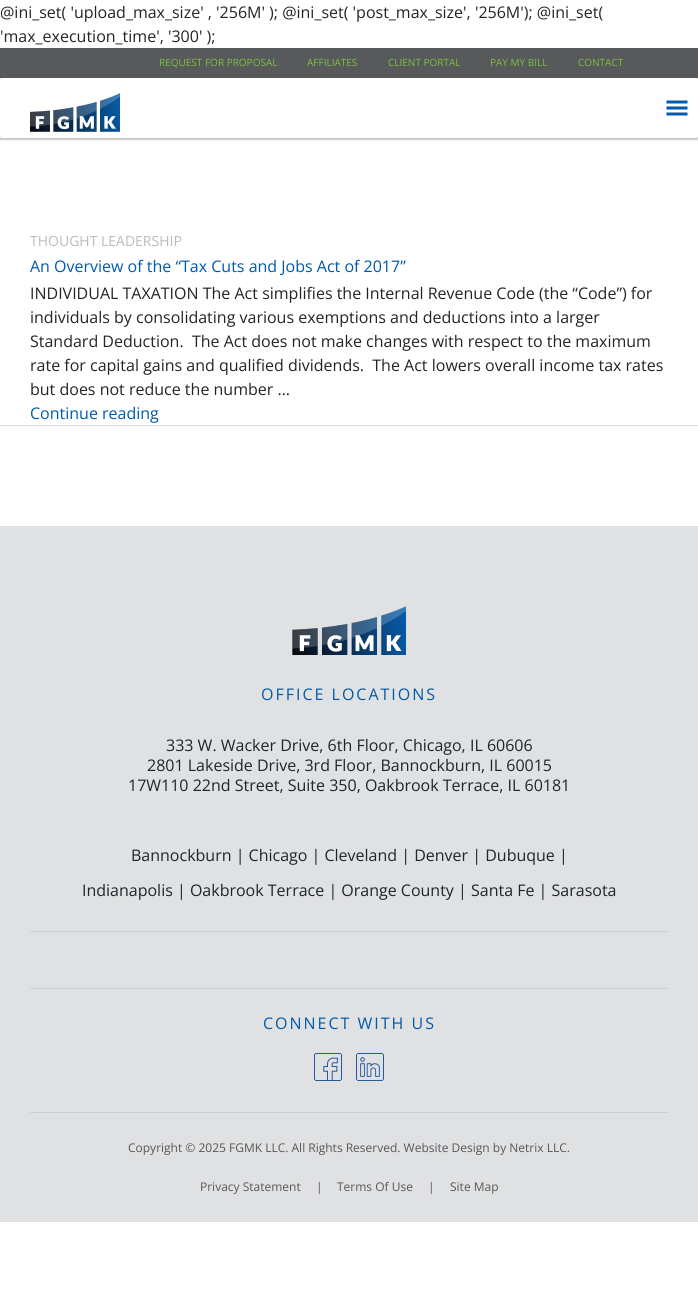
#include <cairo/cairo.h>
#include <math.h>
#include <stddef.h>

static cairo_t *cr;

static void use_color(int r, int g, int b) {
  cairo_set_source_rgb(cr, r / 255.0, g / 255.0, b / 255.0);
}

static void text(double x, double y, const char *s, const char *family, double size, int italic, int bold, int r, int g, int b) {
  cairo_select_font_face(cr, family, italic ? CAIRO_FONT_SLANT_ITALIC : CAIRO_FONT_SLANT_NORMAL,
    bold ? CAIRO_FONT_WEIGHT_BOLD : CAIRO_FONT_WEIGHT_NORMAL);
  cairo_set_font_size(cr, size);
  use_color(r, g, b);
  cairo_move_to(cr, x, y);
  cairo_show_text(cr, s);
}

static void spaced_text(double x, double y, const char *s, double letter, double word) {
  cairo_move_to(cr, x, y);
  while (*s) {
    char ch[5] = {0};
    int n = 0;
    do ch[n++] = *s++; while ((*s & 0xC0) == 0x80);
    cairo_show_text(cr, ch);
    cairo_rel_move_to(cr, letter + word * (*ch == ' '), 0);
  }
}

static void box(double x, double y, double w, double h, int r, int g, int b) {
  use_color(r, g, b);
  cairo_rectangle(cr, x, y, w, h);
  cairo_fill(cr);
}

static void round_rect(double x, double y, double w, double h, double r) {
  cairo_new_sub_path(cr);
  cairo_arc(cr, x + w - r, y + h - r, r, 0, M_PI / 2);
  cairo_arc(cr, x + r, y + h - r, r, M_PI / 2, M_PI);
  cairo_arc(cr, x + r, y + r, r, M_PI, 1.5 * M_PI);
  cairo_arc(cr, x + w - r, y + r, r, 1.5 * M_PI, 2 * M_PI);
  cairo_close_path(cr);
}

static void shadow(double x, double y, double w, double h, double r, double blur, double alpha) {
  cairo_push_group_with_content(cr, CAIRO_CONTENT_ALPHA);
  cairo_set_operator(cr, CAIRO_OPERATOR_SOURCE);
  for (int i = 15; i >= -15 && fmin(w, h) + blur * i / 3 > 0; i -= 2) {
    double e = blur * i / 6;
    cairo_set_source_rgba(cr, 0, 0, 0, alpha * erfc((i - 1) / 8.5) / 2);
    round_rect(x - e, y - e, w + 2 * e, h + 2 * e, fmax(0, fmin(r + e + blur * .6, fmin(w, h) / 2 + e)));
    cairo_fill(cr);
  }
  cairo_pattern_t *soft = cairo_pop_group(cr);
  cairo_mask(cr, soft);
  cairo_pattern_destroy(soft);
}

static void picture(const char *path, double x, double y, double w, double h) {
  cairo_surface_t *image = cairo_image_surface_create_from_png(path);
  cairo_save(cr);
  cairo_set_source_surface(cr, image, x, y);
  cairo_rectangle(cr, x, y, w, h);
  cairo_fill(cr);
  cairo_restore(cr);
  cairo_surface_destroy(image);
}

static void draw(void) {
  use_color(255, 255, 255);
  cairo_paint(cr);
  use_color(35, 35, 35);
  shadow(0, 49, 698, 30, 0, 0.5, 0.2);
  box(0, 48, 698, 30, 88, 89, 91);
  use_color(35, 35, 35);
  shadow(0, 80, 698, 60, 0, 0.5, 0.25);
  use_color(255, 255, 255);
  round_rect(0, 78, 698, 60, 2);
  cairo_fill(cr);
  picture("img_01.png", 666, 100, 22, 16);
  picture("img_02.png", 30, 93, 90, 39);
  box(0, 425, 698, 1, 221, 221, 221);
  box(0, 526, 698, 696, 224, 225, 226);
  picture("img_03.png", 292, 606, 114, 49);
  box(30, 931, 638, 1, 202, 206, 213);
  box(30, 988, 638, 1, 202, 206, 213);
  picture("img_04.png", 314, 1053, 28, 28);
  picture("img_05.png", 356, 1053, 28, 28);
  box(30, 1112, 638, 1, 202, 206, 213);
  text(0, 18, "@ini_set( 'upload_max_size' , '256M' ); @ini_set( 'post_max_size', '256M'); @ini_set(", "Open Sans", 16, 0, 0, 33, 37, 41);
  text(0, 42, "'max_execution_time', '300' );", "Open Sans", 16, 0, 0, 33, 37, 41);
  text(159, 66, "REQUEST FOR PROPOSAL", "Open Sans", 10, 0, 0, 122, 193, 66);
  text(307, 66, "AFFILIATES", "Open Sans", 10, 0, 0, 122, 193, 66);
  text(388, 66, "CLIENT PORTAL", "Open Sans", 10, 0, 0, 122, 193, 66);
  text(490, 66, "PAY MY BILL", "Open Sans", 10, 0, 0, 122, 193, 66);
  text(578, 66, "CONTACT", "Open Sans", 10, 0, 0, 122, 193, 66);
  text(30, 246, "THOUGHT LEADERSHIP", "Open Sans", 14, 0, 0, 187, 187, 187);
  text(30, 272, "An Overview of the “Tax Cuts and Jobs Act of 2017”", "Open Sans", 16, 0, 0, 0, 90, 171);
  text(30, 299, "INDIVIDUAL TAXATION The Act simplifies the Internal Revenue Code (the “Code”) for", "Open Sans", 16, 0, 0, 33, 37, 41);
  text(30, 323, "individuals by consolidating various exemptions and deductions into a larger", "Open Sans", 16, 0, 0, 33, 37, 41);
  text(30, 347, "Standard Deduction.  The Act does not make changes with respect to the maximum", "Open Sans", 16, 0, 0, 33, 37, 41);
  text(30, 371, "rate for capital gains and qualified dividends.  The Act lowers overall income tax rates", "Open Sans", 16, 0, 0, 33, 37, 41);
  text(30, 395, "but does not reduce the number …", "Open Sans", 16, 0, 0, 33, 37, 41);
  text(30, 419, "Continue reading", "Open Sans", 16, 0, 0, 0, 90, 171);
  spaced_text(261, 700, "OFFICE LOCATIONS", 2, 0);
  text(166, 751, "333 W. Wacker Drive, 6th Floor, Chicago, IL 60606", "Open Sans", 16, 0, 0, 33, 37, 41);
  text(147, 771, "2801 Lakeside Drive, 3rd Floor, Bannockburn, IL 60015", "Open Sans", 16, 0, 0, 33, 37, 41);
  text(128, 791, "17W110 22nd Street, Suite 350, Oakbrook Terrace, IL 60181", "Open Sans", 16, 0, 0, 33, 37, 41);
  text(131, 861, "Bannockburn | Chicago | Cleveland | Denver | Dubuque |", "Open Sans", 16, 0, 0, 33, 37, 41);
  text(82, 896, "Indianapolis | Oakbrook Terrace | Orange County | Santa Fe | Sarasota", "Open Sans", 16, 0, 0, 33, 37, 41);
  use_color(0, 90, 171);
  spaced_text(263, 1029, "CONNECT WITH US", 2, 0);
  text(128, 1152, "Copyright © 2025 FGMK LLC. All Rights Reserved. Website Design by Netrix LLC.", "Open Sans", 12, 0, 0, 87, 87, 89);
  text(200, 1191, "Privacy Statement", "Open Sans", 12, 0, 0, 87, 87, 89);
  text(316, 1191, "|", "Open Sans", 12, 0, 0, 87, 87, 89);
  text(337, 1191, "Terms Of Use", "Open Sans", 12, 0, 0, 87, 87, 89);
  text(428, 1191, "|", "Open Sans", 12, 0, 0, 87, 87, 89);
  text(450, 1191, "Site Map", "Open Sans", 12, 0, 0, 87, 87, 89);
}

int main(void) {
  cairo_surface_t *surface = cairo_image_surface_create(CAIRO_FORMAT_RGB24, 698, 1294);
  cr = cairo_create(surface);
  cairo_font_options_t *options = cairo_font_options_create();
  cairo_font_options_set_hint_metrics(options, CAIRO_HINT_METRICS_OFF);
  cairo_font_options_set_hint_style(options, CAIRO_HINT_STYLE_NONE);
  cairo_set_font_options(cr, options);
  cairo_set_miter_limit(cr, 4);
  draw();
  cairo_surface_write_to_png(surface, "out.png");
  cairo_font_options_destroy(options);
  cairo_destroy(cr);
  cairo_surface_destroy(surface);
  return 0;
}
